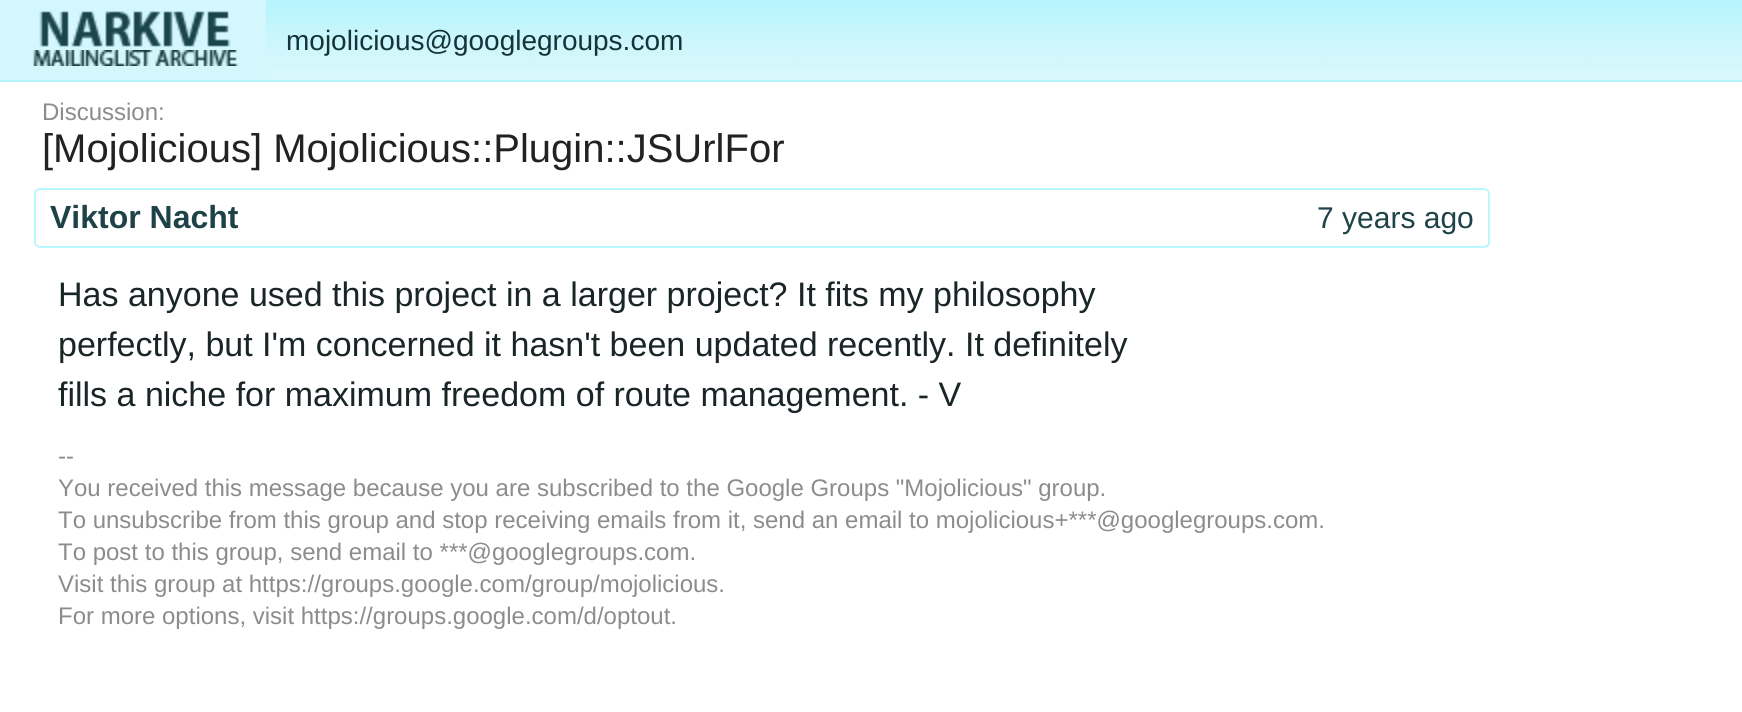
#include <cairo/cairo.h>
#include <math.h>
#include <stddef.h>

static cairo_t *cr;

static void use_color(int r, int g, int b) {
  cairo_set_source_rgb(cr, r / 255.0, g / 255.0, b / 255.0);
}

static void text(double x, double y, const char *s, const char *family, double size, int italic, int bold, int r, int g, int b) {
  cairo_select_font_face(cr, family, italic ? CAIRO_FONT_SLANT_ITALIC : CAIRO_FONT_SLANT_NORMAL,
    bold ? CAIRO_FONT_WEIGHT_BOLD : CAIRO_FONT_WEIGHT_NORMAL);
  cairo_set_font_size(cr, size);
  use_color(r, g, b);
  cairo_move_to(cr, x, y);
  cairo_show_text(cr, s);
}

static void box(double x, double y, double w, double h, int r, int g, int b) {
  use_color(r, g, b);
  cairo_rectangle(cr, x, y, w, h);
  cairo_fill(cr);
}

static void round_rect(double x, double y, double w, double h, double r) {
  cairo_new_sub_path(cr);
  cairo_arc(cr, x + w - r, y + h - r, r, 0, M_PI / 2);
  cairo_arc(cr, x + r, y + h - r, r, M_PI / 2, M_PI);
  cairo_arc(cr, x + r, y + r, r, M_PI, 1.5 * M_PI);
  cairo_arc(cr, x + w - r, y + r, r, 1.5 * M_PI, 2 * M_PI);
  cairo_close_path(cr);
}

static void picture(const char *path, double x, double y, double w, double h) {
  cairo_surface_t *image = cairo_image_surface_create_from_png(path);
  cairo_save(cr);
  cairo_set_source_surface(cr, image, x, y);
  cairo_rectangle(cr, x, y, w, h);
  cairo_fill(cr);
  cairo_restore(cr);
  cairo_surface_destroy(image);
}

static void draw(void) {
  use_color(255, 255, 255);
  cairo_paint(cr);
  box(266, 0, 1476, 80, 199, 246, 252);
  picture("img_01.png", 266, 0, 1476, 80);
  box(0, 80, 1742, 2, 178, 243, 252);
  box(0, 0, 266, 80, 211, 247, 252);
  picture("img_02.png", 39, 11, 192, 36);
  picture("img_03.png", 33, 50, 206, 16);
  round_rect(35, 189, 1454, 58, 5);
  use_color(187, 247, 255);
  cairo_stroke(cr);
  text(286, 50, "mojolicious@googlegroups.com", "Liberation Sans", 28, 0, 0, 22, 52, 56);
  text(42, 120, "Discussion:", "Liberation Sans", 24, 0, 0, 140, 140, 140);
  text(42, 162, "[Mojolicious] Mojolicious::Plugin::JSUrlFor", "Liberation Sans", 40, 0, 0, 34, 34, 34);
  text(50, 228, "Viktor Nacht", "Liberation Sans", 32, 0, 1, 29, 66, 71);
  text(1317, 228, "7 years ago", "Liberation Sans", 30, 0, 0, 29, 66, 71);
  text(58, 306, "Has anyone used this project in a larger project? It fits my philosophy", "Liberation Sans", 34, 0, 0, 25, 37, 39);
  text(58, 356, "perfectly, but I'm concerned it hasn't been updated recently. It definitely", "Liberation Sans", 34, 0, 0, 25, 37, 39);
  text(58, 406, "fills a niche for maximum freedom of route management. - V", "Liberation Sans", 34, 0, 0, 25, 37, 39);
  text(58, 464, "--", "Liberation Sans", 24, 0, 0, 140, 140, 140);
  text(58, 496, "You received this message because you are subscribed to the Google Groups \"Mojolicious\" group.", "Liberation Sans", 24, 0, 0, 140, 140, 140);
  text(58, 528, "To unsubscribe from this group and stop receiving emails from it, send an email to mojolicious+***@googlegroups.com.", "Liberation Sans", 24, 0, 0, 140, 140, 140);
  text(58, 560, "To post to this group, send email to ***@googlegroups.com.", "Liberation Sans", 24, 0, 0, 140, 140, 140);
  text(58, 592, "Visit this group at https://groups.google.com/group/mojolicious.", "Liberation Sans", 24, 0, 0, 140, 140, 140);
  text(58, 624, "For more options, visit https://groups.google.com/d/optout.", "Liberation Sans", 24, 0, 0, 140, 140, 140);
}

int main(void) {
  cairo_surface_t *surface = cairo_image_surface_create(CAIRO_FORMAT_RGB24, 1742, 712);
  cr = cairo_create(surface);
  cairo_font_options_t *options = cairo_font_options_create();
  cairo_font_options_set_hint_metrics(options, CAIRO_HINT_METRICS_OFF);
  cairo_font_options_set_hint_style(options, CAIRO_HINT_STYLE_NONE);
  cairo_set_font_options(cr, options);
  cairo_set_miter_limit(cr, 4);
  draw();
  cairo_surface_write_to_png(surface, "out.png");
  cairo_font_options_destroy(options);
  cairo_destroy(cr);
  cairo_surface_destroy(surface);
  return 0;
}
